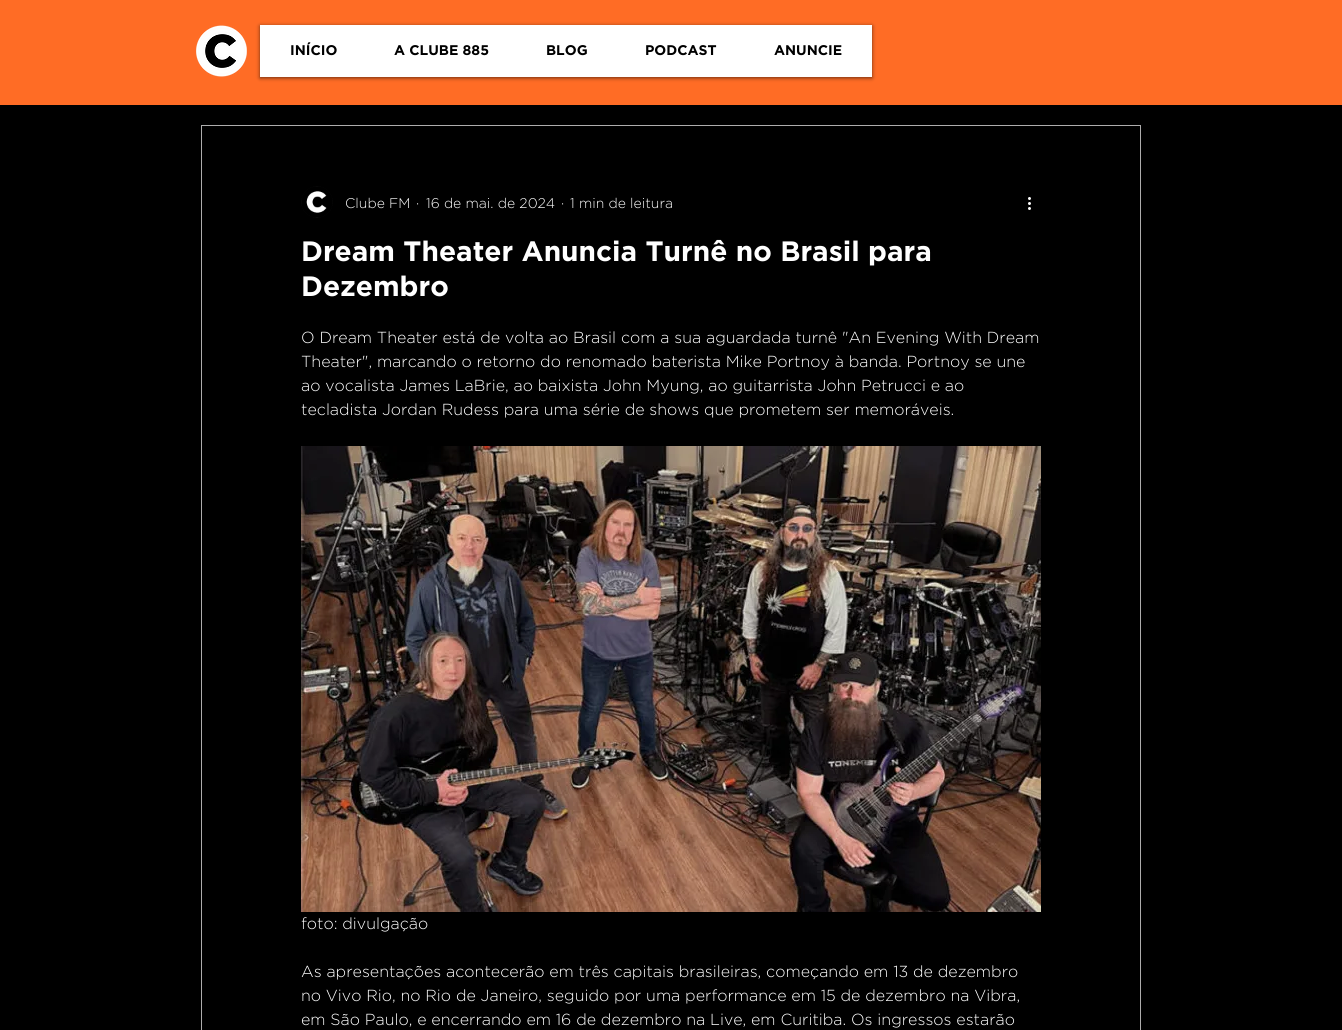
#include <cairo/cairo.h>
#include <math.h>
#include <stddef.h>

static cairo_t *cr;

static void use_color(int r, int g, int b) {
  cairo_set_source_rgb(cr, r / 255.0, g / 255.0, b / 255.0);
}

static void text(double x, double y, const char *s, const char *family, double size, int italic, int bold, int r, int g, int b) {
  cairo_select_font_face(cr, family, italic ? CAIRO_FONT_SLANT_ITALIC : CAIRO_FONT_SLANT_NORMAL,
    bold ? CAIRO_FONT_WEIGHT_BOLD : CAIRO_FONT_WEIGHT_NORMAL);
  cairo_set_font_size(cr, size);
  use_color(r, g, b);
  cairo_move_to(cr, x, y);
  cairo_show_text(cr, s);
}

static void box(double x, double y, double w, double h, int r, int g, int b) {
  use_color(r, g, b);
  cairo_rectangle(cr, x, y, w, h);
  cairo_fill(cr);
}

static void round_rect(double x, double y, double w, double h, double r) {
  cairo_new_sub_path(cr);
  cairo_arc(cr, x + w - r, y + h - r, r, 0, M_PI / 2);
  cairo_arc(cr, x + r, y + h - r, r, M_PI / 2, M_PI);
  cairo_arc(cr, x + r, y + r, r, M_PI, 1.5 * M_PI);
  cairo_arc(cr, x + w - r, y + r, r, 1.5 * M_PI, 2 * M_PI);
  cairo_close_path(cr);
}

static void shadow(double x, double y, double w, double h, double r, double blur, double alpha) {
  cairo_push_group_with_content(cr, CAIRO_CONTENT_ALPHA);
  cairo_set_operator(cr, CAIRO_OPERATOR_SOURCE);
  for (int i = 15; i >= -15 && fmin(w, h) + blur * i / 3 > 0; i -= 2) {
    double e = blur * i / 6;
    cairo_set_source_rgba(cr, 0, 0, 0, alpha * erfc((i - 1) / 8.5) / 2);
    round_rect(x - e, y - e, w + 2 * e, h + 2 * e, fmax(0, fmin(r + e + blur * .6, fmin(w, h) / 2 + e)));
    cairo_fill(cr);
  }
  cairo_pattern_t *soft = cairo_pop_group(cr);
  cairo_mask(cr, soft);
  cairo_pattern_destroy(soft);
}

static void picture(const char *path, double x, double y, double w, double h) {
  cairo_surface_t *image = cairo_image_surface_create_from_png(path);
  cairo_save(cr);
  cairo_set_source_surface(cr, image, x, y);
  cairo_rectangle(cr, x, y, w, h);
  cairo_fill(cr);
  cairo_restore(cr);
  cairo_surface_destroy(image);
}

static void draw(void) {
  use_color(0, 0, 0);
  cairo_paint(cr);
  box(0, 0, 1342, 105, 255, 108, 37);
  picture("img_01.png", 196, 25, 51, 52);
  use_color(0, 0, 0);
  shadow(260, 26, 612, 52, 0, 2, 0.6);
  box(260, 25, 612, 52, 255, 255, 255);
  cairo_rectangle(cr, 201.5, 125.5, 939, 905);
  use_color(174, 173, 173);
  cairo_set_line_width(cr, 1);
  cairo_stroke(cr);
  picture("img_02.png", 301, 186, 32, 32);
  picture("img_03.png", 1028, 197, 3, 13);
  picture("img_04.png", 301, 446, 740, 466);
  text(290, 55, "INÍCIO", "Gotham", 14, 0, 1, 0, 0, 0);
  text(394, 55, "A CLUBE 885", "Gotham", 14, 0, 1, 0, 0, 0);
  text(546, 55, "BLOG", "Gotham", 14, 0, 1, 0, 0, 0);
  text(645, 55, "PODCAST", "Gotham", 14, 0, 1, 0, 0, 0);
  text(774, 55, "ANUNCIE", "Gotham", 14, 0, 1, 0, 0, 0);
  text(345, 208, "Clube FM", "Gotham Light", 14, 0, 0, 255, 255, 255);
  text(416, 208, "·", "Gotham Light", 14, 0, 0, 255, 255, 255);
  text(426, 208, "16 de mai. de 2024", "Gotham Light", 14, 0, 0, 255, 255, 255);
  text(561, 208, "·", "Gotham Light", 14, 0, 0, 255, 255, 255);
  text(570, 208, "1 min de leitura", "Gotham Light", 14, 0, 0, 255, 255, 255);
  text(301, 261, "Dream Theater Anuncia Turnê no Brasil para", "Gotham", 28, 0, 1, 255, 255, 255);
  text(301, 296, "Dezembro", "Gotham", 28, 0, 1, 255, 255, 255);
  text(301, 343, "O Dream Theater está de volta ao Brasil com a sua aguardada turnê \"An Evening With Dream", "Gotham Light", 16, 0, 0, 255, 255, 255);
  text(301, 367, "Theater\", marcando o retorno do renomado baterista Mike Portnoy à banda. Portnoy se une", "Gotham Light", 16, 0, 0, 255, 255, 255);
  text(301, 391, "ao vocalista James LaBrie, ao baixista John Myung, ao guitarrista John Petrucci e ao", "Gotham Light", 16, 0, 0, 255, 255, 255);
  text(301, 415, "tecladista Jordan Rudess para uma série de shows que prometem ser memoráveis.", "Gotham Light", 16, 0, 0, 255, 255, 255);
  text(301, 929, "foto: divulgação", "Gotham Light", 16, 0, 0, 255, 255, 255);
  text(301, 977, "As apresentações acontecerão em três capitais brasileiras, começando em 13 de dezembro", "Gotham Light", 16, 0, 0, 255, 255, 255);
  text(301, 1001, "no Vivo Rio, no Rio de Janeiro, seguido por uma performance em 15 de dezembro na Vibra,", "Gotham Light", 16, 0, 0, 255, 255, 255);
  text(301, 1025, "em São Paulo, e encerrando em 16 de dezembro na Live, em Curitiba. Os ingressos estarão", "Gotham Light", 16, 0, 0, 255, 255, 255);
}

int main(void) {
  cairo_surface_t *surface = cairo_image_surface_create(CAIRO_FORMAT_RGB24, 1342, 1030);
  cr = cairo_create(surface);
  cairo_font_options_t *options = cairo_font_options_create();
  cairo_font_options_set_hint_metrics(options, CAIRO_HINT_METRICS_OFF);
  cairo_font_options_set_hint_style(options, CAIRO_HINT_STYLE_NONE);
  cairo_set_font_options(cr, options);
  cairo_set_miter_limit(cr, 4);
  draw();
  cairo_surface_write_to_png(surface, "out.png");
  cairo_font_options_destroy(options);
  cairo_destroy(cr);
  cairo_surface_destroy(surface);
  return 0;
}
